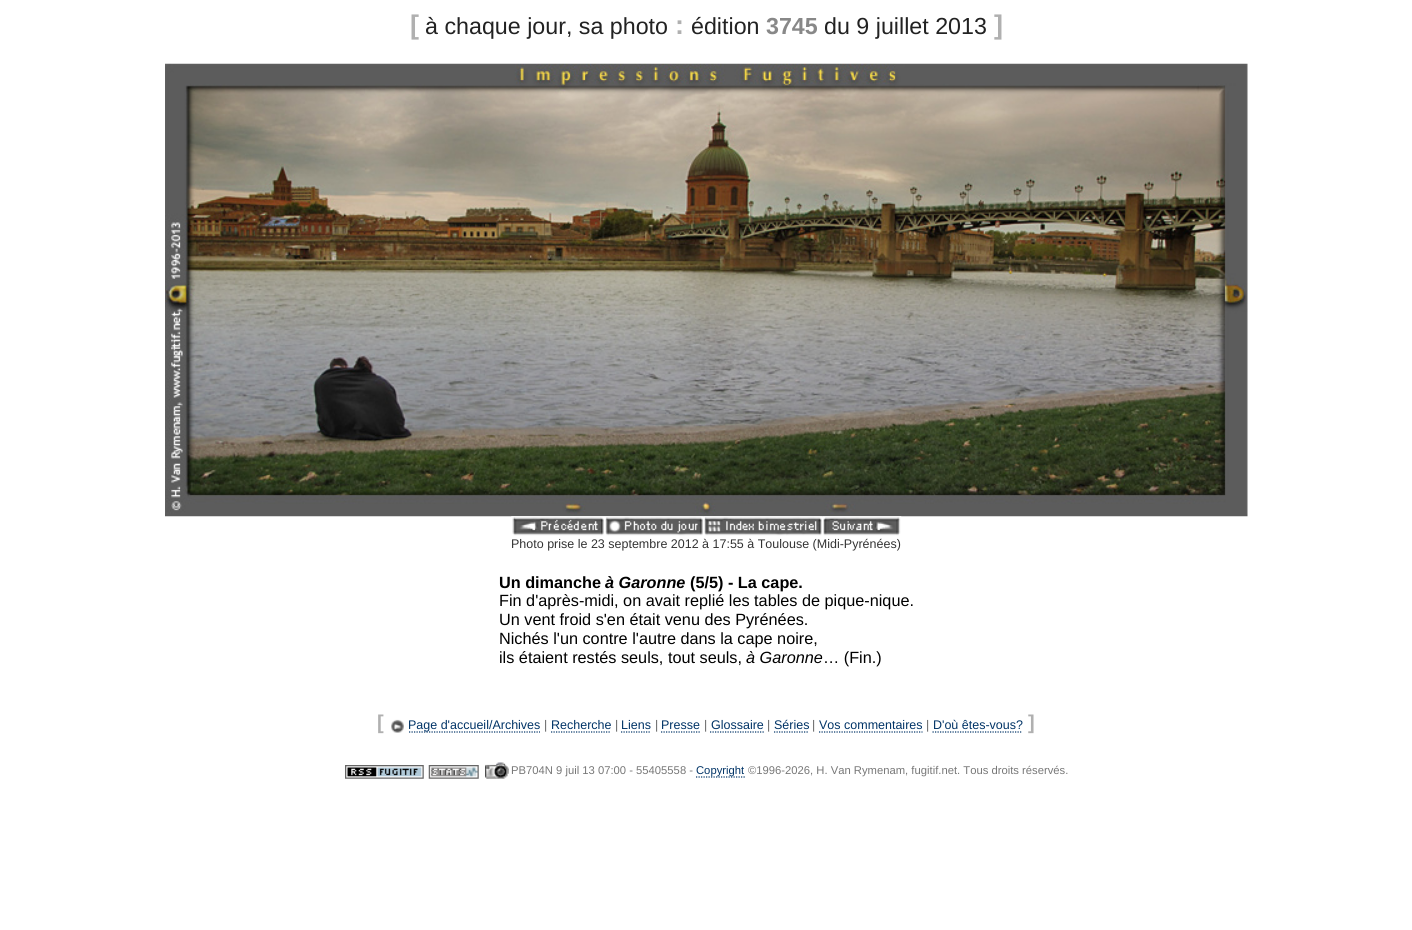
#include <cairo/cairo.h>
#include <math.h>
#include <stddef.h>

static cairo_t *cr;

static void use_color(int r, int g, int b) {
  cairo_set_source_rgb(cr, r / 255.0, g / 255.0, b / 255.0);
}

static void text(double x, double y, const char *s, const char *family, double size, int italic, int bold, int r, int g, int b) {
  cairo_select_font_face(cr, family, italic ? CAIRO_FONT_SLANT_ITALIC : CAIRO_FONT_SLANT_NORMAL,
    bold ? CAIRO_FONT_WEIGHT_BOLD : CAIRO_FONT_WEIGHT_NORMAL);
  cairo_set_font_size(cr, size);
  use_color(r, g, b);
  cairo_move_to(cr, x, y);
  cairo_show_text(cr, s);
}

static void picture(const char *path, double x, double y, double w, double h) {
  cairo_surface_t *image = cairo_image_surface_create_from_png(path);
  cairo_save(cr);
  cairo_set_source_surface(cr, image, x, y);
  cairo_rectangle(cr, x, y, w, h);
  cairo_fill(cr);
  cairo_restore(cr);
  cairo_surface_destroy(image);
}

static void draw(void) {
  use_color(255, 255, 255);
  cairo_paint(cr);
  picture("img_01.png", 165, 63, 1083, 454);
  picture("img_02.png", 511, 516, 94, 20);
  picture("img_03.png", 605, 516, 99, 20);
  picture("img_04.png", 703, 516, 120, 20);
  picture("img_05.png", 822, 516, 80, 20);
  picture("img_06.png", 391, 719, 13, 14);
  cairo_new_path(cr);
  cairo_move_to(cr, 409, 732);
  cairo_line_to(cr, 540, 732);
  use_color(0, 51, 102);
  cairo_set_line_width(cr, 1.2);
  cairo_set_dash(cr, (double[]){1.25, 1.25}, 2, 0);
  cairo_stroke(cr);
  cairo_new_path(cr);
  cairo_move_to(cr, 551, 732);
  cairo_line_to(cr, 611, 732);
  cairo_stroke(cr);
  cairo_new_path(cr);
  cairo_move_to(cr, 621, 732);
  cairo_line_to(cr, 651, 732);
  cairo_stroke(cr);
  cairo_new_path(cr);
  cairo_move_to(cr, 661, 732);
  cairo_line_to(cr, 700, 732);
  cairo_stroke(cr);
  cairo_new_path(cr);
  cairo_move_to(cr, 710, 732);
  cairo_line_to(cr, 764, 732);
  cairo_stroke(cr);
  cairo_new_path(cr);
  cairo_move_to(cr, 774, 732);
  cairo_line_to(cr, 809, 732);
  cairo_stroke(cr);
  cairo_new_path(cr);
  cairo_move_to(cr, 819, 732);
  cairo_line_to(cr, 922.5, 732);
  cairo_stroke(cr);
  cairo_new_path(cr);
  cairo_move_to(cr, 932.5, 732);
  cairo_line_to(cr, 1022.5, 732);
  cairo_stroke(cr);
  picture("img_07.png", 345, 765, 79, 14);
  picture("img_08.png", 428, 765, 51, 14);
  picture("img_09.png", 485, 762, 24, 17);
  cairo_new_path(cr);
  cairo_move_to(cr, 696, 777);
  cairo_line_to(cr, 745, 777);
  cairo_stroke(cr);
  text(410, 34, "[", "Liberation Sans", 27, 0, 1, 176, 176, 176);
  text(425, 34, "à chaque jour, sa photo", "Liberation Sans", 23.25, 0, 0, 34, 34, 34);
  text(675, 34, ":", "Liberation Sans", 27, 0, 1, 176, 176, 176);
  text(691, 34, "édition", "Liberation Sans", 23.25, 0, 0, 34, 34, 34);
  text(766, 34, "3745", "Liberation Sans", 23.25, 0, 1, 136, 136, 136);
  text(824, 34, "du 9 juillet 2013", "Liberation Sans", 23.25, 0, 0, 34, 34, 34);
  text(994, 34, "]", "Liberation Sans", 27, 0, 1, 176, 176, 176);
  text(511, 548, "Photo prise le 23 septembre 2012 à 17:55 à Toulouse (Midi-Pyrénées)", "Liberation Sans", 12.5, 0, 0, 51, 51, 51);
  text(499, 588, "Un dimanche", "Liberation Sans", 16.25, 0, 1, 0, 0, 0);
  text(605, 588, "à Garonne", "Liberation Sans", 16.25, 1, 1, 0, 0, 0);
  text(690, 588, "(5/5) - La cape.", "Liberation Sans", 16.25, 0, 1, 0, 0, 0);
  text(499, 606, "Fin d'après-midi, on avait replié les tables de pique-nique.", "Liberation Sans", 16.25, 0, 0, 0, 0, 0);
  text(499, 625, "Un vent froid s'en était venu des Pyrénées.", "Liberation Sans", 16.25, 0, 0, 0, 0, 0);
  text(499, 644, "Nichés l'un contre l'autre dans la cape noire,", "Liberation Sans", 16.25, 0, 0, 0, 0, 0);
  text(499, 663, "ils étaient restés seuls, tout seuls,", "Liberation Sans", 16.25, 0, 0, 0, 0, 0);
  text(746, 663, "à Garonne", "Liberation Sans", 16.25, 1, 0, 0, 0, 0);
  text(823, 663, "… (Fin.)", "Liberation Sans", 16.25, 0, 0, 0, 0, 0);
  text(377, 729, "[", "Liberation Sans", 20, 0, 1, 176, 176, 176);
  text(408, 729, "Page d'accueil/Archives", "Liberation Sans", 12.5, 0, 0, 0, 51, 102);
  text(544, 729, "|", "Liberation Sans", 12.5, 0, 0, 102, 102, 102);
  text(551, 729, "Recherche", "Liberation Sans", 12.5, 0, 0, 0, 51, 102);
  text(615, 729, "|", "Liberation Sans", 12.5, 0, 0, 102, 102, 102);
  text(621, 729, "Liens", "Liberation Sans", 12.5, 0, 0, 0, 51, 102);
  text(655, 729, "|", "Liberation Sans", 12.5, 0, 0, 102, 102, 102);
  text(661, 729, "Presse", "Liberation Sans", 12.5, 0, 0, 0, 51, 102);
  text(704, 729, "|", "Liberation Sans", 12.5, 0, 0, 102, 102, 102);
  text(711, 729, "Glossaire", "Liberation Sans", 12.5, 0, 0, 0, 51, 102);
  text(767, 729, "|", "Liberation Sans", 12.5, 0, 0, 102, 102, 102);
  text(774, 729, "Séries", "Liberation Sans", 12.5, 0, 0, 0, 51, 102);
  text(812, 729, "|", "Liberation Sans", 12.5, 0, 0, 102, 102, 102);
  text(819, 729, "Vos commentaires", "Liberation Sans", 12.5, 0, 0, 0, 51, 102);
  text(926, 729, "|", "Liberation Sans", 12.5, 0, 0, 102, 102, 102);
  text(933, 729, "D'où êtes-vous?", "Liberation Sans", 12.5, 0, 0, 0, 51, 102);
  text(1028, 729, "]", "Liberation Sans", 20, 0, 1, 176, 176, 176);
  text(511, 774, "PB704N 9 juil 13 07:00 - 55405558 -", "Liberation Sans", 11.25, 0, 0, 119, 119, 119);
  text(696, 774, "Copyright", "Liberation Sans", 11.25, 0, 0, 0, 51, 102);
  text(748, 774, "©1996-2026, H. Van Rymenam, fugitif.net. Tous droits réservés.", "Liberation Sans", 11.25, 0, 0, 119, 119, 119);
}

int main(void) {
  cairo_surface_t *surface = cairo_image_surface_create(CAIRO_FORMAT_RGB24, 1412, 930);
  cr = cairo_create(surface);
  cairo_font_options_t *options = cairo_font_options_create();
  cairo_font_options_set_hint_metrics(options, CAIRO_HINT_METRICS_OFF);
  cairo_font_options_set_hint_style(options, CAIRO_HINT_STYLE_NONE);
  cairo_set_font_options(cr, options);
  cairo_set_miter_limit(cr, 4);
  draw();
  cairo_surface_write_to_png(surface, "out.png");
  cairo_font_options_destroy(options);
  cairo_destroy(cr);
  cairo_surface_destroy(surface);
  return 0;
}
